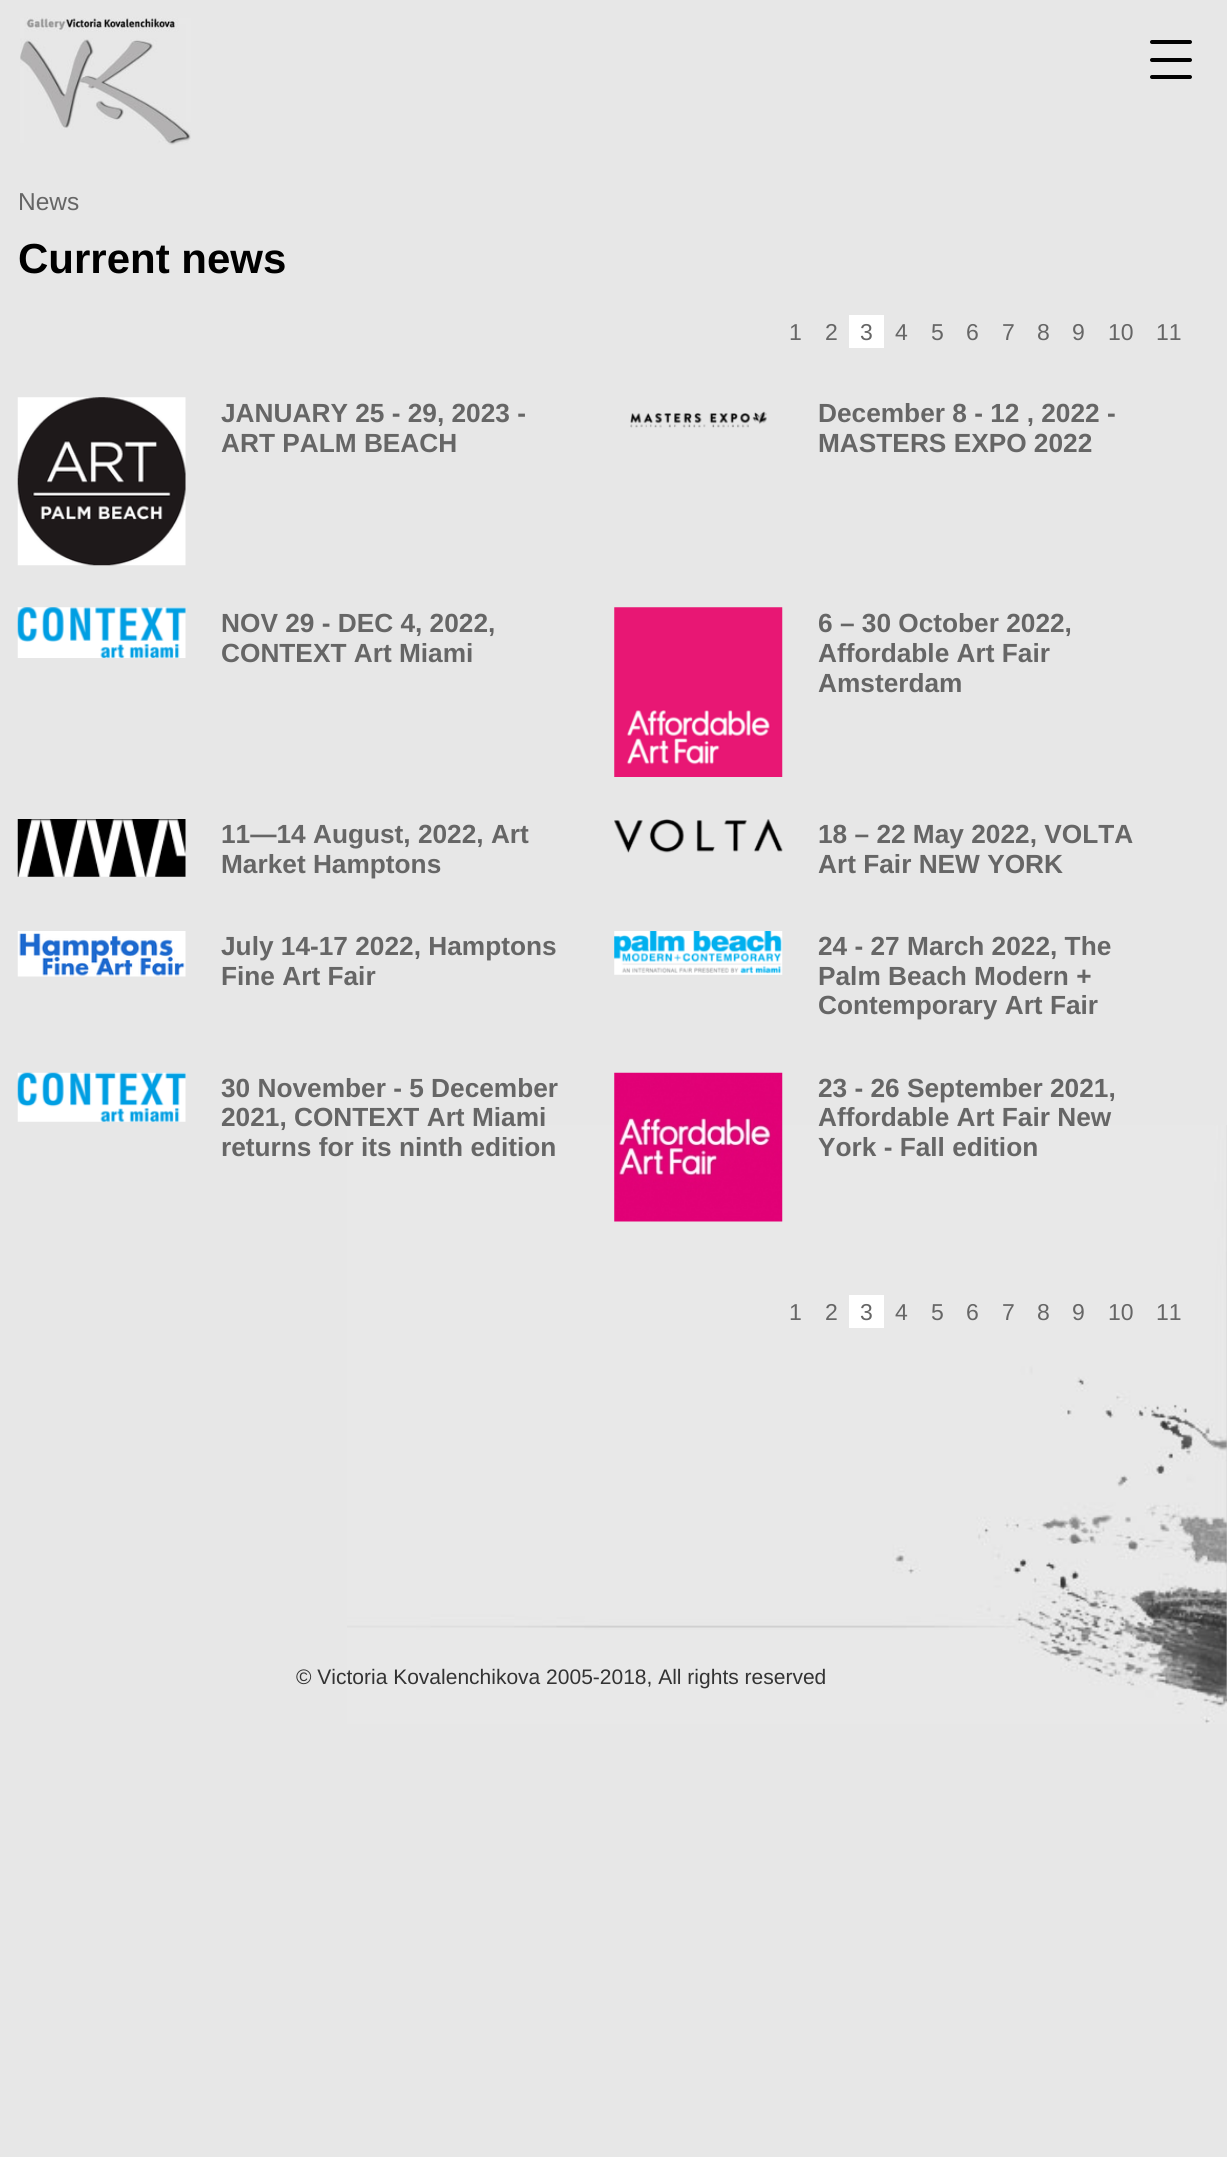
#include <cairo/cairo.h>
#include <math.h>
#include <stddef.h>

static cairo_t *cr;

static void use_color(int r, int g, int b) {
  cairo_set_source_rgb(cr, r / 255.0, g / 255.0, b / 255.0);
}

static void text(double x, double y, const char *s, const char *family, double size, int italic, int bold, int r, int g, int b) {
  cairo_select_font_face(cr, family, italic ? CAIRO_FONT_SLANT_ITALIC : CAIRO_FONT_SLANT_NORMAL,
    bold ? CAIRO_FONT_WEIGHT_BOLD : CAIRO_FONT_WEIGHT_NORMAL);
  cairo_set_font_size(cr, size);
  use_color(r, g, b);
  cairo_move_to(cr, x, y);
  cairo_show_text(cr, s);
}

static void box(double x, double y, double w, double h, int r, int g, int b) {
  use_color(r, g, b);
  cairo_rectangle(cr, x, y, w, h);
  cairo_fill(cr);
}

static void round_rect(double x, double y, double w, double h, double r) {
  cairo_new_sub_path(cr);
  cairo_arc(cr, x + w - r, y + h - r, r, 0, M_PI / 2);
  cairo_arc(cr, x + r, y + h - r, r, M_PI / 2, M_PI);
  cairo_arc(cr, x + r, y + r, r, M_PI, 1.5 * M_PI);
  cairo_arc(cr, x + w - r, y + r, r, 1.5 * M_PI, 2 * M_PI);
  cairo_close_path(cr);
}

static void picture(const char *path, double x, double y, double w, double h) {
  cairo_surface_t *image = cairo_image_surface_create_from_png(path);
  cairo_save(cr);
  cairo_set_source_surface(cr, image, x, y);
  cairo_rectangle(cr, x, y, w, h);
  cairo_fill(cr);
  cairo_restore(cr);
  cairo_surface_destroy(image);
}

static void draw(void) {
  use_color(231, 231, 231);
  cairo_paint(cr);
  picture("img_01.png", 347, 1125, 880, 599);
  picture("img_02.png", 20, 17, 171, 128);
  use_color(0, 0, 0);
  round_rect(1150, 58, 42, 4, 2);
  cairo_fill(cr);
  round_rect(1150, 40, 42, 4, 2);
  cairo_fill(cr);
  round_rect(1150, 75, 42, 4, 2);
  cairo_fill(cr);
  box(849, 315, 35, 33, 255, 255, 255);
  picture("img_03.png", 17, 397, 169, 169);
  picture("img_04.png", 630, 411, 137, 17);
  picture("img_05.png", 17, 607, 169, 51);
  picture("img_06.png", 614, 607, 169, 170);
  picture("img_07.png", 17, 819, 169, 58);
  picture("img_08.png", 614, 819, 169, 34);
  picture("img_09.png", 17, 931, 169, 46);
  picture("img_10.png", 614, 931, 169, 44);
  picture("img_11.png", 17, 1072, 169, 50);
  picture("img_12.png", 614, 1072, 169, 150);
  box(849, 1295, 35, 33, 255, 255, 255);
  text(18, 210, "News", "Liberation Sans", 24.5, 0, 0, 102, 102, 102);
  text(18, 273, "Current news", "Liberation Sans", 42, 0, 1, 0, 0, 0);
  text(789, 340, "1", "Liberation Sans", 23, 0, 0, 102, 102, 102);
  text(825, 340, "2", "Liberation Sans", 23, 0, 0, 102, 102, 102);
  text(860, 340, "3", "Liberation Sans", 23, 0, 0, 102, 102, 102);
  text(895, 340, "4", "Liberation Sans", 23, 0, 0, 102, 102, 102);
  text(931, 340, "5", "Liberation Sans", 23, 0, 0, 102, 102, 102);
  text(966, 340, "6", "Liberation Sans", 23, 0, 0, 102, 102, 102);
  text(1002, 340, "7", "Liberation Sans", 23, 0, 0, 102, 102, 102);
  text(1037, 340, "8", "Liberation Sans", 23, 0, 0, 102, 102, 102);
  text(1072, 340, "9", "Liberation Sans", 23, 0, 0, 102, 102, 102);
  text(1108, 340, "10", "Liberation Sans", 23, 0, 0, 102, 102, 102);
  text(1156, 340, "11", "Liberation Sans", 23, 0, 0, 102, 102, 102);
  text(221, 422, "JANUARY 25 - 29, 2023 -", "Liberation Sans", 26.25, 0, 1, 102, 102, 102);
  text(221, 452, "ART PALM BEACH", "Liberation Sans", 26.25, 0, 1, 102, 102, 102);
  text(818, 422, "December 8 - 12 , 2022 -", "Liberation Sans", 26.25, 0, 1, 102, 102, 102);
  text(818, 452, "MASTERS EXPO 2022", "Liberation Sans", 26.25, 0, 1, 102, 102, 102);
  text(221, 632, "NOV 29 - DEC 4, 2022,", "Liberation Sans", 26.25, 0, 1, 102, 102, 102);
  text(221, 662, "CONTEXT Art Miami", "Liberation Sans", 26.25, 0, 1, 102, 102, 102);
  text(818, 632, "6 – 30 October 2022,", "Liberation Sans", 26.25, 0, 1, 102, 102, 102);
  text(818, 662, "Affordable Art Fair", "Liberation Sans", 26.25, 0, 1, 102, 102, 102);
  text(818, 692, "Amsterdam", "Liberation Sans", 26.25, 0, 1, 102, 102, 102);
  text(221, 843, "11—14 August, 2022, Art", "Liberation Sans", 26.25, 0, 1, 102, 102, 102);
  text(221, 873, "Market Hamptons", "Liberation Sans", 26.25, 0, 1, 102, 102, 102);
  text(818, 843, "18 – 22 May 2022, VOLTA", "Liberation Sans", 26.25, 0, 1, 102, 102, 102);
  text(818, 873, "Art Fair NEW YORK", "Liberation Sans", 26.25, 0, 1, 102, 102, 102);
  text(221, 955, "July 14-17 2022, Hamptons", "Liberation Sans", 26.25, 0, 1, 102, 102, 102);
  text(221, 985, "Fine Art Fair", "Liberation Sans", 26.25, 0, 1, 102, 102, 102);
  text(818, 955, "24 - 27 March 2022, The", "Liberation Sans", 26.25, 0, 1, 102, 102, 102);
  text(818, 985, "Palm Beach Modern +", "Liberation Sans", 26.25, 0, 1, 102, 102, 102);
  text(818, 1014, "Contemporary Art Fair", "Liberation Sans", 26.25, 0, 1, 102, 102, 102);
  text(221, 1097, "30 November - 5 December", "Liberation Sans", 26.25, 0, 1, 102, 102, 102);
  text(221, 1126, "2021, CONTEXT Art Miami", "Liberation Sans", 26.25, 0, 1, 102, 102, 102);
  text(221, 1156, "returns for its ninth edition", "Liberation Sans", 26.25, 0, 1, 102, 102, 102);
  text(818, 1097, "23 - 26 September 2021,", "Liberation Sans", 26.25, 0, 1, 102, 102, 102);
  text(818, 1126, "Affordable Art Fair New", "Liberation Sans", 26.25, 0, 1, 102, 102, 102);
  text(818, 1156, "York - Fall edition", "Liberation Sans", 26.25, 0, 1, 102, 102, 102);
  text(789, 1320, "1", "Liberation Sans", 23, 0, 0, 102, 102, 102);
  text(825, 1320, "2", "Liberation Sans", 23, 0, 0, 102, 102, 102);
  text(860, 1320, "3", "Liberation Sans", 23, 0, 0, 102, 102, 102);
  text(895, 1320, "4", "Liberation Sans", 23, 0, 0, 102, 102, 102);
  text(931, 1320, "5", "Liberation Sans", 23, 0, 0, 102, 102, 102);
  text(966, 1320, "6", "Liberation Sans", 23, 0, 0, 102, 102, 102);
  text(1002, 1320, "7", "Liberation Sans", 23, 0, 0, 102, 102, 102);
  text(1037, 1320, "8", "Liberation Sans", 23, 0, 0, 102, 102, 102);
  text(1072, 1320, "9", "Liberation Sans", 23, 0, 0, 102, 102, 102);
  text(1108, 1320, "10", "Liberation Sans", 23, 0, 0, 102, 102, 102);
  text(1156, 1320, "11", "Liberation Sans", 23, 0, 0, 102, 102, 102);
  text(296, 1684, "© Victoria Kovalenchikova 2005-2018, All rights reserved", "Liberation Sans", 21, 0, 0, 51, 51, 51);
}

int main(void) {
  cairo_surface_t *surface = cairo_image_surface_create(CAIRO_FORMAT_RGB24, 1227, 2157);
  cr = cairo_create(surface);
  cairo_font_options_t *options = cairo_font_options_create();
  cairo_font_options_set_hint_metrics(options, CAIRO_HINT_METRICS_OFF);
  cairo_font_options_set_hint_style(options, CAIRO_HINT_STYLE_NONE);
  cairo_set_font_options(cr, options);
  cairo_set_miter_limit(cr, 4);
  draw();
  cairo_surface_write_to_png(surface, "out.png");
  cairo_font_options_destroy(options);
  cairo_destroy(cr);
  cairo_surface_destroy(surface);
  return 0;
}
